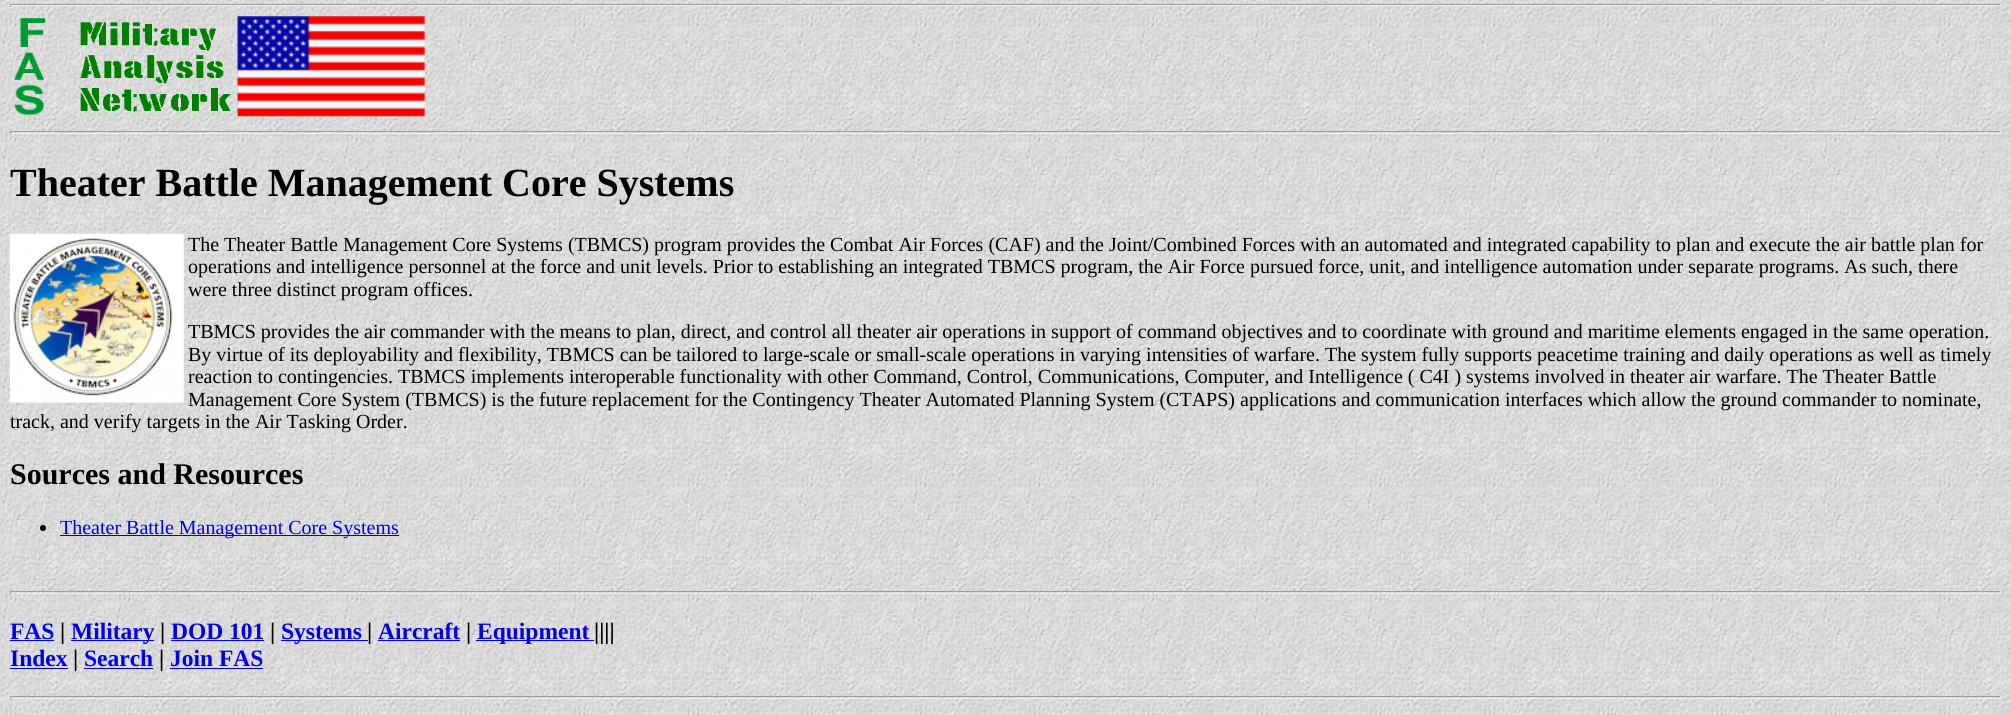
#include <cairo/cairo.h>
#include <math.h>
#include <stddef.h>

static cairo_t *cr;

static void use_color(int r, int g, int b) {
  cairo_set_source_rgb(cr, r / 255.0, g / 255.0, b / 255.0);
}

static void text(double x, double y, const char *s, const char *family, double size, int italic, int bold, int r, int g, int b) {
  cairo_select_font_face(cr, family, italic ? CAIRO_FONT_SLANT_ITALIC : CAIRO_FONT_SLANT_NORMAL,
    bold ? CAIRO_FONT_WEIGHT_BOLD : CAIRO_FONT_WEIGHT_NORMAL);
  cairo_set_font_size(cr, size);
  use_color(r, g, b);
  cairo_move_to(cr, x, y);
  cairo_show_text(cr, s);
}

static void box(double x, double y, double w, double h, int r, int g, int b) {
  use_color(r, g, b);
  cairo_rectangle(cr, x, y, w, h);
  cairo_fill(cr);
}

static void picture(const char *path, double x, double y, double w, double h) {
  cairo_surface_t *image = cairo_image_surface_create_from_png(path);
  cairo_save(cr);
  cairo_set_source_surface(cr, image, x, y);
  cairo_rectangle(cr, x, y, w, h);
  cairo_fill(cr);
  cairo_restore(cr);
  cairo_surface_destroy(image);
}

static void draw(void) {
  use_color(255, 255, 255);
  cairo_paint(cr);
  picture("img_01.png", 0, 0, 2011, 715);
  box(10, 4, 1991, 1, 159, 159, 159);
  box(2000, 4, 1, 3, 238, 238, 238);
  box(10, 5, 1991, 1, 238, 238, 238);
  box(10, 4, 1, 3, 159, 159, 159);
  picture("img_02.png", 13, 18, 33, 98);
  picture("img_03.png", 80, 22, 151, 90);
  picture("img_04.png", 237, 16, 188, 101);
  box(10, 131, 1991, 1, 159, 159, 159);
  box(2000, 131, 1, 3, 238, 238, 238);
  box(10, 133, 1991, 1, 238, 238, 238);
  box(10, 131, 1, 3, 159, 159, 159);
  picture("img_05.png", 10, 233, 174, 170);
  use_color(0, 0, 0);
  cairo_arc(cr, 43, 528, 3, 0, 2 * M_PI);
  cairo_fill(cr);
  box(60, 535, 339, 1, 0, 0, 238);
  box(10, 591, 1991, 1, 159, 159, 159);
  box(2000, 591, 1, 3, 238, 238, 238);
  box(10, 593, 1991, 1, 238, 238, 238);
  box(10, 591, 1, 3, 159, 159, 159);
  box(10, 640, 44, 1, 0, 0, 238);
  box(71, 640, 83, 1, 0, 0, 238);
  box(171, 640, 93, 1, 0, 0, 238);
  box(281, 640, 87, 1, 0, 0, 238);
  box(378, 640, 82, 1, 0, 0, 238);
  box(476, 640, 118, 1, 0, 0, 238);
  box(10, 668, 58, 1, 0, 0, 238);
  box(84, 668, 69, 1, 0, 0, 238);
  box(170, 668, 93, 1, 0, 0, 238);
  box(10, 696, 1991, 1, 159, 159, 159);
  box(2000, 696, 1, 3, 238, 238, 238);
  box(10, 698, 1991, 1, 238, 238, 238);
  box(10, 696, 1, 3, 159, 159, 159);
  text(10, 196, "Theater Battle Management Core Systems", "Liberation Serif", 40, 0, 1, 0, 0, 0);
  text(188, 251, "The Theater Battle Management Core Systems (TBMCS) program provides the Combat Air Forces (CAF) and the Joint/Combined Forces with an automated and integrated capability to plan and execute the air battle plan for", "Liberation Serif", 20, 0, 0, 0, 0, 0);
  text(188, 273, "operations and intelligence personnel at the force and unit levels. Prior to establishing an integrated TBMCS program, the Air Force pursued force, unit, and intelligence automation under separate programs. As such, there", "Liberation Serif", 20, 0, 0, 0, 0, 0);
  text(188, 296, "were three distinct program offices.", "Liberation Serif", 20, 0, 0, 0, 0, 0);
  text(188, 338, "TBMCS provides the air commander with the means to plan, direct, and control all theater air operations in support of command objectives and to coordinate with ground and maritime elements engaged in the same operation.", "Liberation Serif", 20, 0, 0, 0, 0, 0);
  text(188, 361, "By virtue of its deployability and flexibility, TBMCS can be tailored to large-scale or small-scale operations in varying intensities of warfare. The system fully supports peacetime training and daily operations as well as timely", "Liberation Serif", 20, 0, 0, 0, 0, 0);
  text(188, 383, "reaction to contingencies. TBMCS implements interoperable functionality with other Command, Control, Communications, Computer, and Intelligence ( C4I ) systems involved in theater air warfare. The Theater Battle", "Liberation Serif", 20, 0, 0, 0, 0, 0);
  text(188, 406, "Management Core System (TBMCS) is the future replacement for the Contingency Theater Automated Planning System (CTAPS) applications and communication interfaces which allow the ground commander to nominate,", "Liberation Serif", 20, 0, 0, 0, 0, 0);
  text(10, 428, "track, and verify targets in the Air Tasking Order.", "Liberation Serif", 20, 0, 0, 0, 0, 0);
  text(10, 484, "Sources and Resources", "Liberation Serif", 30, 0, 1, 0, 0, 0);
  text(60, 534, "Theater Battle Management Core Systems", "Liberation Serif", 20, 0, 0, 0, 0, 238);
  text(10, 639, "FAS", "Liberation Serif", 23.5, 0, 1, 0, 0, 238);
  text(60, 639, "|", "Liberation Serif", 23.5, 0, 1, 0, 0, 0);
  text(71, 639, "Military", "Liberation Serif", 23.5, 0, 1, 0, 0, 238);
  text(160, 639, "|", "Liberation Serif", 23.5, 0, 1, 0, 0, 0);
  text(171, 639, "DOD 101", "Liberation Serif", 23.5, 0, 1, 0, 0, 238);
  text(270, 639, "|", "Liberation Serif", 23.5, 0, 1, 0, 0, 0);
  text(281, 639, "Systems", "Liberation Serif", 23.5, 0, 1, 0, 0, 238);
  text(367, 639, "|", "Liberation Serif", 23.5, 0, 1, 0, 0, 0);
  text(378, 639, "Aircraft", "Liberation Serif", 23.5, 0, 1, 0, 0, 238);
  text(466, 639, "|", "Liberation Serif", 23.5, 0, 1, 0, 0, 0);
  text(477, 639, "Equipment", "Liberation Serif", 23.5, 0, 1, 0, 0, 238);
  text(594, 639, "||||", "Liberation Serif", 23.5, 0, 1, 0, 0, 0);
  text(10, 666, "Index", "Liberation Serif", 23.5, 0, 1, 0, 0, 238);
  text(73, 666, "|", "Liberation Serif", 23.5, 0, 1, 0, 0, 0);
  text(84, 666, "Search", "Liberation Serif", 23.5, 0, 1, 0, 0, 238);
  text(159, 666, "|", "Liberation Serif", 23.5, 0, 1, 0, 0, 0);
  text(170, 666, "Join FAS", "Liberation Serif", 23.5, 0, 1, 0, 0, 238);
}

int main(void) {
  cairo_surface_t *surface = cairo_image_surface_create(CAIRO_FORMAT_RGB24, 2011, 715);
  cr = cairo_create(surface);
  cairo_font_options_t *options = cairo_font_options_create();
  cairo_font_options_set_hint_metrics(options, CAIRO_HINT_METRICS_OFF);
  cairo_font_options_set_hint_style(options, CAIRO_HINT_STYLE_NONE);
  cairo_set_font_options(cr, options);
  cairo_set_miter_limit(cr, 4);
  draw();
  cairo_surface_write_to_png(surface, "out.png");
  cairo_font_options_destroy(options);
  cairo_destroy(cr);
  cairo_surface_destroy(surface);
  return 0;
}
